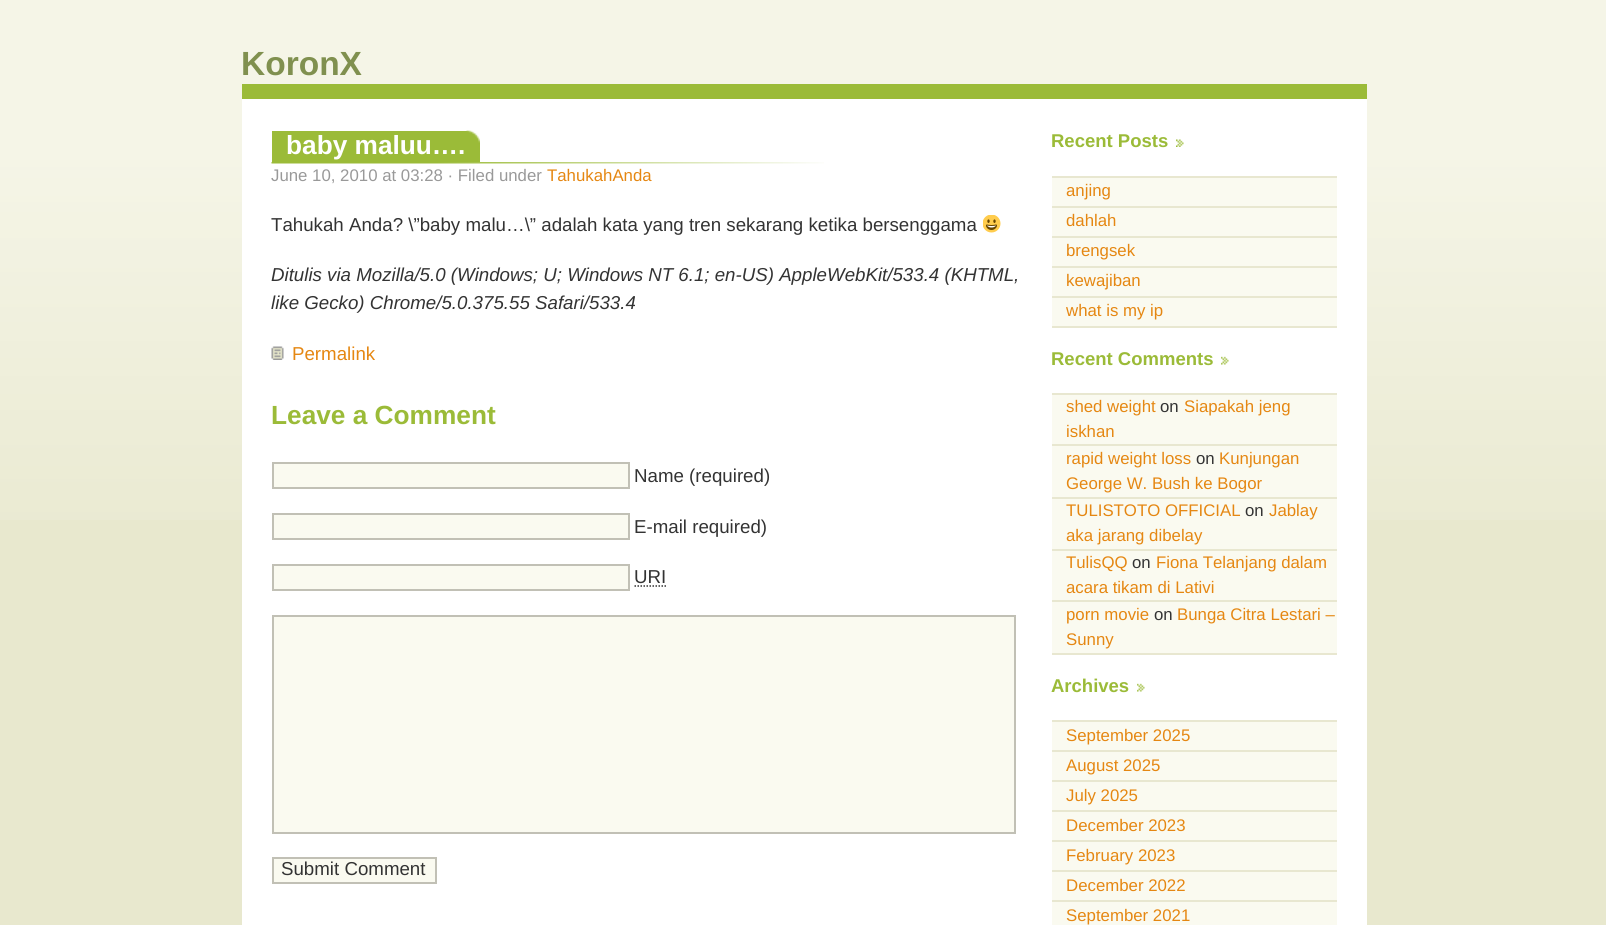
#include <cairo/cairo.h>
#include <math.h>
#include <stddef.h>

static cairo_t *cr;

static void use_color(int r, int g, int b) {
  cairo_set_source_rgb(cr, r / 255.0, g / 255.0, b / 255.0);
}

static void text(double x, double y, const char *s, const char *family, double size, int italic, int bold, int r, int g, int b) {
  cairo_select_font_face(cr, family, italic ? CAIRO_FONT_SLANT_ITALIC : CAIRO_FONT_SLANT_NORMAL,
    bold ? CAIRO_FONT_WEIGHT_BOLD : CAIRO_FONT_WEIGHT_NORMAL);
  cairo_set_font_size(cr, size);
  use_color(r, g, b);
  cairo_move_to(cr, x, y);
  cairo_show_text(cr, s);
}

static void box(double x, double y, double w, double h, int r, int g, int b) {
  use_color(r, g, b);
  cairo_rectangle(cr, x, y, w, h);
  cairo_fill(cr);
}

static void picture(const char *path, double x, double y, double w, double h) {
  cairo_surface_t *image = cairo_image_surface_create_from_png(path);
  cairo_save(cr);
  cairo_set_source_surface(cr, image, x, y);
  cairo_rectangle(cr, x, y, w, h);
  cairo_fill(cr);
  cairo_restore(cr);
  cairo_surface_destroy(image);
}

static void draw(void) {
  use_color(232, 232, 206);
  cairo_paint(cr);
  picture("img_01.png", 0, 0, 1606, 520);
  box(242, 99, 1125, 826, 255, 255, 255);
  box(242, 84, 1125, 15, 155, 187, 56);
  box(272, 131, 208, 31, 155, 187, 56);
  picture("img_02.png", 466, 130, 14, 13);
  picture("img_03.png", 271, 162, 553, 2);
  picture("img_04.png", 983, 215, 18, 18);
  picture("img_05.png", 271, 346, 13, 14);
  use_color(250, 250, 240);
  cairo_rectangle(cr, 273, 463, 356, 25);
  cairo_fill_preserve(cr);
  use_color(193, 192, 181);
  cairo_stroke(cr);
  use_color(250, 250, 240);
  cairo_rectangle(cr, 273, 514, 356, 25);
  cairo_fill_preserve(cr);
  use_color(193, 192, 181);
  cairo_stroke(cr);
  use_color(250, 250, 240);
  cairo_rectangle(cr, 273, 565, 356, 25);
  cairo_fill_preserve(cr);
  use_color(193, 192, 181);
  cairo_stroke(cr);
  cairo_new_path(cr);
  cairo_move_to(cr, 634.5, 586);
  cairo_line_to(cr, 666.5, 586);
  use_color(51, 51, 51);
  cairo_set_line_width(cr, 1.5);
  cairo_set_dash(cr, (double[]){1.5, 1.5}, 2, 0);
  cairo_stroke(cr);
  use_color(250, 250, 240);
  cairo_rectangle(cr, 273, 616, 742, 217);
  cairo_fill_preserve(cr);
  use_color(193, 192, 181);
  cairo_set_line_width(cr, 2);
  cairo_set_dash(cr, NULL, 0, 0);
  cairo_stroke(cr);
  use_color(250, 250, 240);
  cairo_rectangle(cr, 273, 858, 163, 25);
  cairo_fill_preserve(cr);
  use_color(193, 192, 181);
  cairo_stroke(cr);
  picture("img_06.png", 1176, 139, 8, 8);
  box(1052, 178, 285, 148, 250, 250, 240);
  box(1052, 176, 285, 2, 232, 231, 208);
  box(1052, 206, 285, 2, 232, 231, 208);
  box(1052, 236, 285, 2, 232, 231, 208);
  box(1052, 266, 285, 2, 232, 231, 208);
  box(1052, 296, 285, 2, 232, 231, 208);
  box(1052, 326, 285, 2, 232, 231, 208);
  picture("img_07.png", 1221, 356, 8, 9);
  box(1052, 395, 285, 258, 250, 250, 240);
  box(1052, 393, 285, 2, 232, 231, 208);
  box(1052, 444, 285, 2, 232, 231, 208);
  box(1052, 497, 285, 2, 232, 231, 208);
  box(1052, 549, 285, 2, 232, 231, 208);
  box(1052, 600, 285, 2, 232, 231, 208);
  box(1052, 653, 285, 2, 232, 231, 208);
  picture("img_07.png", 1137, 683, 8, 9);
  box(1052, 722, 285, 203, 250, 250, 240);
  box(1052, 720, 285, 2, 232, 231, 208);
  box(1052, 750, 285, 2, 232, 231, 208);
  box(1052, 780, 285, 2, 232, 231, 208);
  box(1052, 810, 285, 2, 232, 231, 208);
  box(1052, 840, 285, 2, 232, 231, 208);
  box(1052, 870, 285, 2, 232, 231, 208);
  box(1052, 900, 285, 2, 232, 231, 208);
  text(241, 75, "KoronX", "Liberation Sans", 33.5, 0, 1, 128, 144, 79);
  text(286, 154, "baby maluu….", "Liberation Sans", 26.25, 0, 1, 255, 255, 255);
  text(271, 181, "June 10, 2010 at 03:28 · Filed under", "Liberation Sans", 16.8, 0, 0, 153, 153, 153);
  text(547, 181, "TahukahAnda", "Liberation Sans", 16.8, 0, 0, 229, 135, 18);
  text(271, 231, "Tahukah Anda? \\”baby malu…\\” adalah kata yang tren sekarang ketika bersenggama", "Liberation Sans", 18.7, 0, 0, 51, 51, 51);
  text(271, 281, "Ditulis via Mozilla/5.0 (Windows; U; Windows NT 6.1; en-US) AppleWebKit/533.4 (KHTML,", "Liberation Sans", 18.7, 1, 0, 51, 51, 51);
  text(271, 309, "like Gecko) Chrome/5.0.375.55 Safari/533.4", "Liberation Sans", 18.7, 1, 0, 51, 51, 51);
  text(292, 360, "Permalink", "Liberation Sans", 18.7, 0, 0, 229, 135, 18);
  text(271, 424, "Leave a Comment", "Liberation Sans", 26.25, 0, 1, 155, 187, 56);
  text(634, 482, "Name (required)", "Liberation Sans", 18.7, 0, 0, 51, 51, 51);
  text(634, 533, "E-mail required)", "Liberation Sans", 18.7, 0, 0, 51, 51, 51);
  text(634, 583, "URI", "Liberation Sans", 18.7, 0, 0, 51, 51, 51);
  text(281, 875, "Submit Comment", "Liberation Sans", 18.7, 0, 0, 51, 51, 51);
  text(1051, 147, "Recent Posts", "Liberation Sans", 18.5, 0, 1, 155, 187, 56);
  text(1066, 196, "anjing", "Liberation Sans", 16.8, 0, 0, 229, 135, 18);
  text(1066, 226, "dahlah", "Liberation Sans", 16.8, 0, 0, 229, 135, 18);
  text(1066, 256, "brengsek", "Liberation Sans", 16.8, 0, 0, 229, 135, 18);
  text(1066, 286, "kewajiban", "Liberation Sans", 16.8, 0, 0, 229, 135, 18);
  text(1066, 316, "what is my ip", "Liberation Sans", 16.8, 0, 0, 229, 135, 18);
  text(1051, 365, "Recent Comments", "Liberation Sans", 18.5, 0, 1, 155, 187, 56);
  text(1066, 412, "shed weight", "Liberation Sans", 16.8, 0, 0, 229, 135, 18);
  text(1160, 412, "on", "Liberation Sans", 16.8, 0, 0, 51, 51, 51);
  text(1184, 412, "Siapakah jeng", "Liberation Sans", 16.8, 0, 0, 229, 135, 18);
  text(1066, 437, "iskhan", "Liberation Sans", 16.8, 0, 0, 229, 135, 18);
  text(1066, 464, "rapid weight loss", "Liberation Sans", 16.8, 0, 0, 229, 135, 18);
  text(1196, 464, "on", "Liberation Sans", 16.8, 0, 0, 51, 51, 51);
  text(1219, 464, "Kunjungan", "Liberation Sans", 16.8, 0, 0, 229, 135, 18);
  text(1066, 489, "George W. Bush ke Bogor", "Liberation Sans", 16.8, 0, 0, 229, 135, 18);
  text(1066, 516, "TULISTOTO OFFICIAL", "Liberation Sans", 16.8, 0, 0, 229, 135, 18);
  text(1245, 516, "on", "Liberation Sans", 16.8, 0, 0, 51, 51, 51);
  text(1269, 516, "Jablay", "Liberation Sans", 16.8, 0, 0, 229, 135, 18);
  text(1066, 541, "aka jarang dibelay", "Liberation Sans", 16.8, 0, 0, 229, 135, 18);
  text(1066, 568, "TulisQQ", "Liberation Sans", 16.8, 0, 0, 229, 135, 18);
  text(1132, 568, "on", "Liberation Sans", 16.8, 0, 0, 51, 51, 51);
  text(1156, 568, "Fiona Telanjang dalam", "Liberation Sans", 16.8, 0, 0, 229, 135, 18);
  text(1066, 593, "acara tikam di Lativi", "Liberation Sans", 16.8, 0, 0, 229, 135, 18);
  text(1066, 620, "porn movie", "Liberation Sans", 16.8, 0, 0, 229, 135, 18);
  text(1154, 620, "on", "Liberation Sans", 16.8, 0, 0, 51, 51, 51);
  text(1177, 620, "Bunga Citra Lestari –", "Liberation Sans", 16.8, 0, 0, 229, 135, 18);
  text(1066, 645, "Sunny", "Liberation Sans", 16.8, 0, 0, 229, 135, 18);
  text(1051, 692, "Archives", "Liberation Sans", 18.5, 0, 1, 155, 187, 56);
  text(1066, 741, "September 2025", "Liberation Sans", 16.8, 0, 0, 229, 135, 18);
  text(1066, 771, "August 2025", "Liberation Sans", 16.8, 0, 0, 229, 135, 18);
  text(1066, 801, "July 2025", "Liberation Sans", 16.8, 0, 0, 229, 135, 18);
  text(1066, 831, "December 2023", "Liberation Sans", 16.8, 0, 0, 229, 135, 18);
  text(1066, 861, "February 2023", "Liberation Sans", 16.8, 0, 0, 229, 135, 18);
  text(1066, 891, "December 2022", "Liberation Sans", 16.8, 0, 0, 229, 135, 18);
  text(1066, 921, "September 2021", "Liberation Sans", 16.8, 0, 0, 229, 135, 18);
}

int main(void) {
  cairo_surface_t *surface = cairo_image_surface_create(CAIRO_FORMAT_RGB24, 1606, 925);
  cr = cairo_create(surface);
  cairo_font_options_t *options = cairo_font_options_create();
  cairo_font_options_set_hint_metrics(options, CAIRO_HINT_METRICS_OFF);
  cairo_font_options_set_hint_style(options, CAIRO_HINT_STYLE_NONE);
  cairo_set_font_options(cr, options);
  cairo_set_miter_limit(cr, 4);
  draw();
  cairo_surface_write_to_png(surface, "out.png");
  cairo_font_options_destroy(options);
  cairo_destroy(cr);
  cairo_surface_destroy(surface);
  return 0;
}
